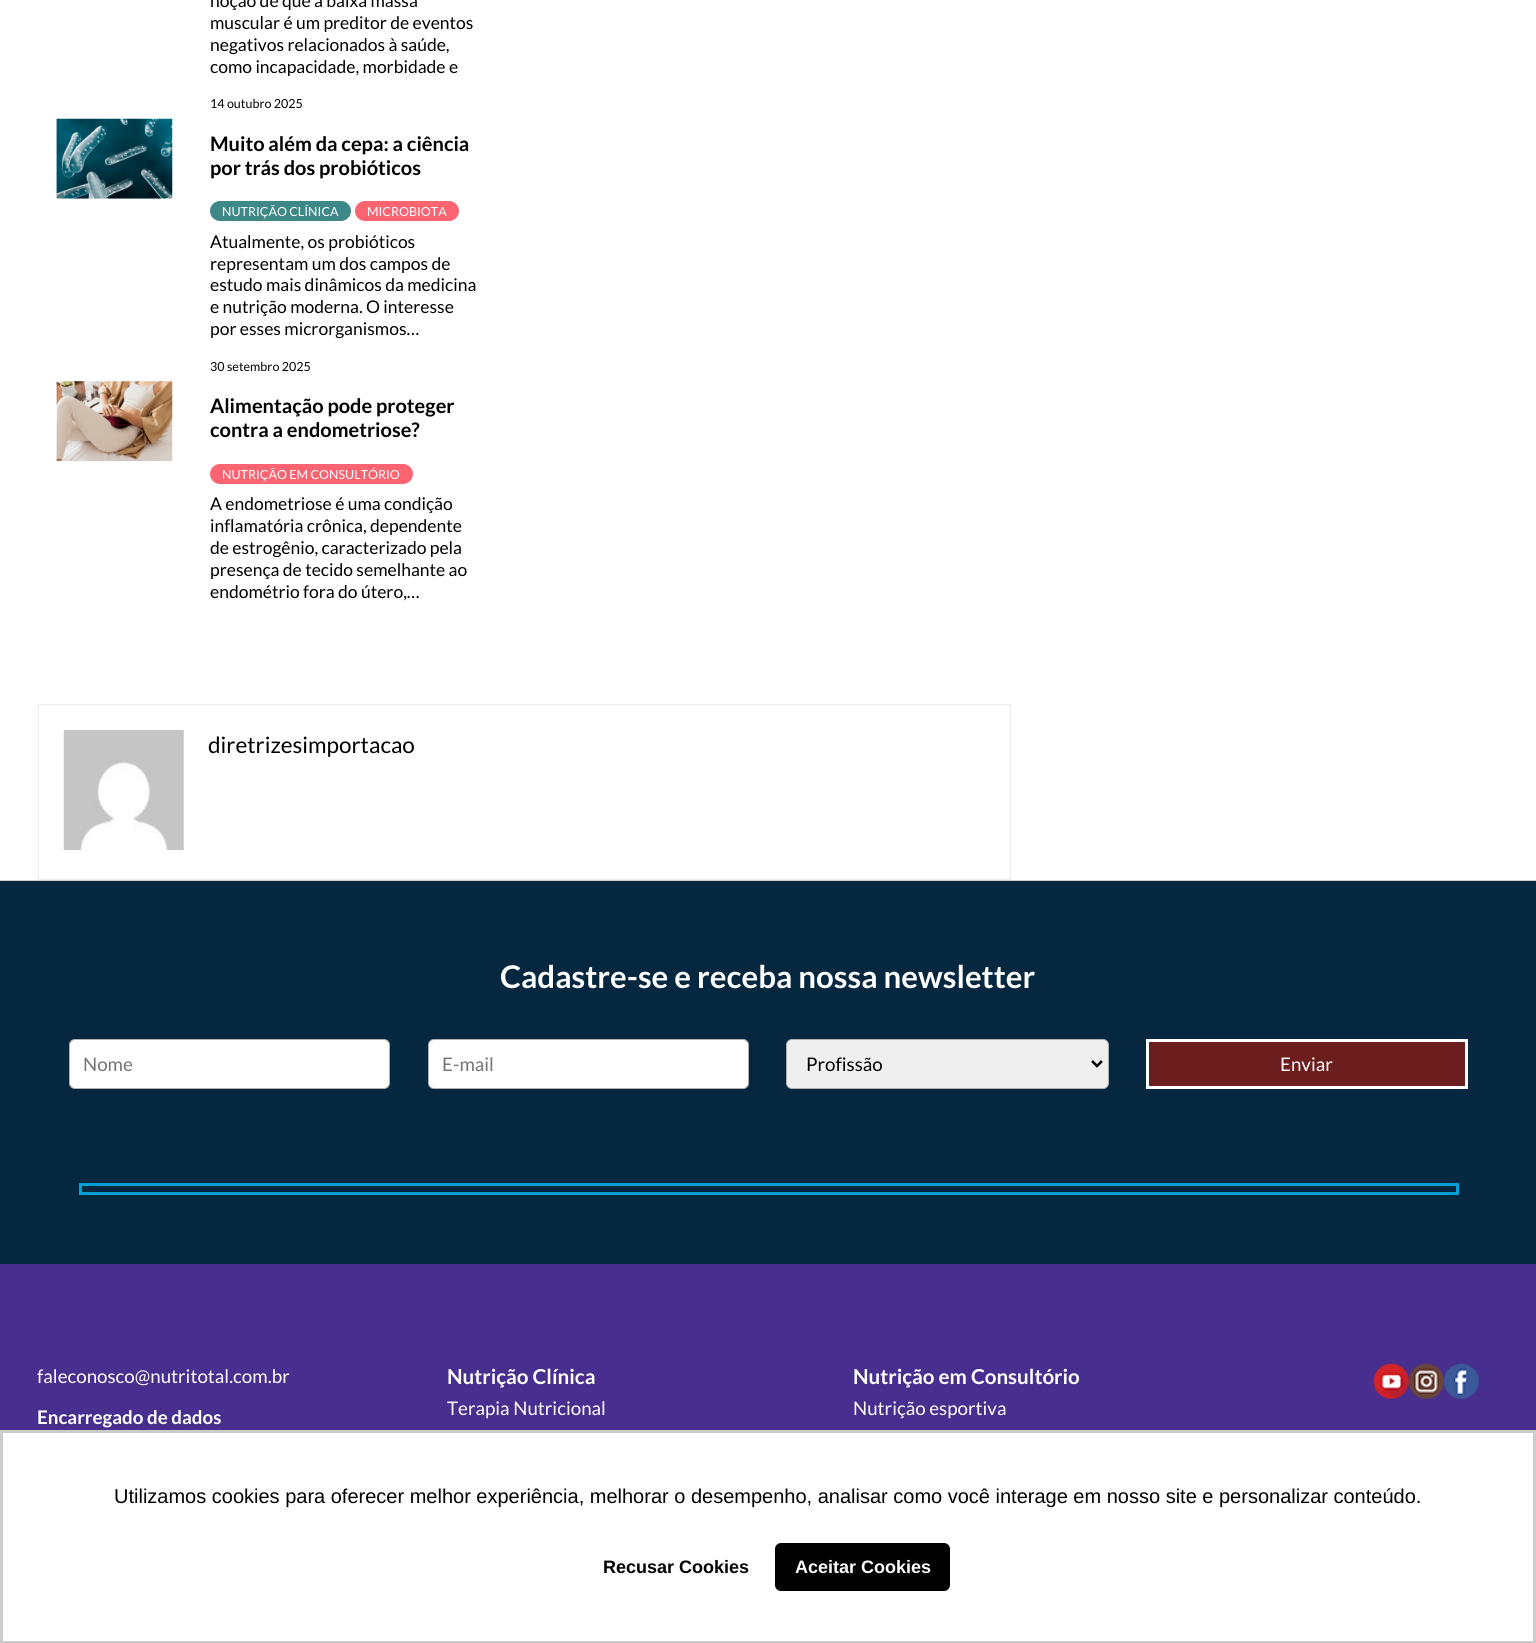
#include <cairo/cairo.h>
#include <math.h>
#include <stddef.h>

static cairo_t *cr;

static void use_color(int r, int g, int b) {
  cairo_set_source_rgb(cr, r / 255.0, g / 255.0, b / 255.0);
}

static void text(double x, double y, const char *s, const char *family, double size, int italic, int bold, int r, int g, int b) {
  cairo_select_font_face(cr, family, italic ? CAIRO_FONT_SLANT_ITALIC : CAIRO_FONT_SLANT_NORMAL,
    bold ? CAIRO_FONT_WEIGHT_BOLD : CAIRO_FONT_WEIGHT_NORMAL);
  cairo_set_font_size(cr, size);
  use_color(r, g, b);
  cairo_move_to(cr, x, y);
  cairo_show_text(cr, s);
}

static void box(double x, double y, double w, double h, int r, int g, int b) {
  use_color(r, g, b);
  cairo_rectangle(cr, x, y, w, h);
  cairo_fill(cr);
}

static void round_rect(double x, double y, double w, double h, double r) {
  cairo_new_sub_path(cr);
  cairo_arc(cr, x + w - r, y + h - r, r, 0, M_PI / 2);
  cairo_arc(cr, x + r, y + h - r, r, M_PI / 2, M_PI);
  cairo_arc(cr, x + r, y + r, r, M_PI, 1.5 * M_PI);
  cairo_arc(cr, x + w - r, y + r, r, 1.5 * M_PI, 2 * M_PI);
  cairo_close_path(cr);
}

static void picture(const char *path, double x, double y, double w, double h) {
  cairo_surface_t *image = cairo_image_surface_create_from_png(path);
  cairo_save(cr);
  cairo_set_source_surface(cr, image, x, y);
  cairo_rectangle(cr, x, y, w, h);
  cairo_fill(cr);
  cairo_restore(cr);
  cairo_surface_destroy(image);
}

static void draw(void) {
  use_color(255, 255, 255);
  cairo_paint(cr);
  picture("img_01.png", 56, 118, 117, 81);
  use_color(62, 136, 135);
  round_rect(210, 201, 141, 20, 10);
  cairo_fill(cr);
  use_color(253, 100, 114);
  round_rect(355, 201, 104, 20, 10);
  cairo_fill(cr);
  picture("img_02.png", 56, 381, 117, 81);
  round_rect(210, 464, 203, 20, 10);
  cairo_fill(cr);
  cairo_rectangle(cr, 38.5, 704.5, 972, 175);
  use_color(238, 238, 238);
  cairo_set_line_width(cr, 1);
  cairo_stroke(cr);
  picture("img_03.png", 63, 730, 121, 120);
  box(0, 881, 1536, 383, 5, 40, 64);
  box(0, 880, 1536, 1, 207, 207, 207);
  use_color(255, 255, 255);
  round_rect(69.5, 1039.5, 320, 49, 5.5);
  cairo_fill_preserve(cr);
  use_color(175, 175, 175);
  cairo_stroke(cr);
  use_color(255, 255, 255);
  round_rect(428.5, 1039.5, 320, 49, 5.5);
  cairo_fill_preserve(cr);
  use_color(175, 175, 175);
  cairo_stroke(cr);
  use_color(239, 239, 239);
  round_rect(786.5, 1039.5, 322, 49, 5.5);
  cairo_fill_preserve(cr);
  use_color(175, 175, 175);
  cairo_stroke(cr);
  cairo_new_path(cr);
  cairo_move_to(cr, 1092, 1061);
  cairo_line_to(cr, 1097, 1066);
  cairo_line_to(cr, 1102, 1061);
  use_color(0, 0, 0);
  cairo_set_line_width(cr, 2.5);
  cairo_stroke(cr);
  use_color(108, 29, 29);
  cairo_rectangle(cr, 1147.5, 1040.5, 319, 47);
  cairo_fill_preserve(cr);
  use_color(255, 255, 255);
  cairo_set_line_width(cr, 3);
  cairo_stroke(cr);
  cairo_rectangle(cr, 80.5, 1184.5, 1377, 9);
  use_color(0, 160, 210);
  cairo_stroke(cr);
  box(0, 1264, 1536, 166, 72, 46, 142);
  picture("img_04.png", 1373, 1363, 36, 36);
  picture("img_05.png", 1408, 1363, 36, 36);
  picture("img_06.png", 1443, 1363, 36, 36);
  cairo_rectangle(cr, 1.5, 1431.5, 1533, 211);
  use_color(204, 204, 204);
  cairo_stroke(cr);
  use_color(0, 0, 0);
  round_rect(775, 1543, 175, 48, 6);
  cairo_fill(cr);
  text(210, 7, "noção de que a baixa massa", "Lato", 17.5, 0, 0, 0, 0, 0);
  text(210, 29, "muscular é um preditor de eventos", "Lato", 17.5, 0, 0, 0, 0, 0);
  text(210, 51, "negativos relacionados à saúde,", "Lato", 17.5, 0, 0, 0, 0, 0);
  text(210, 73, "como incapacidade, morbidade e", "Lato", 17.5, 0, 0, 0, 0, 0);
  text(210, 108, "14 outubro 2025", "Lato", 12.5, 0, 0, 0, 0, 0);
  text(210, 151, "Muito além da cepa: a ciência", "Lato", 20, 0, 1, 0, 0, 0);
  text(210, 175, "por trás dos probióticos", "Lato", 20, 0, 1, 0, 0, 0);
  text(222, 216, "NUTRIÇÃO CLÍNICA", "Lato", 12.5, 0, 0, 255, 255, 255);
  text(367, 216, "MICROBIOTA", "Lato", 12.5, 0, 0, 255, 255, 255);
  text(210, 248, "Atualmente, os probióticos", "Lato", 17.5, 0, 0, 0, 0, 0);
  text(210, 270, "representam um dos campos de", "Lato", 17.5, 0, 0, 0, 0, 0);
  text(210, 291, "estudo mais dinâmicos da medicina", "Lato", 17.5, 0, 0, 0, 0, 0);
  text(210, 313, "e nutrição moderna. O interesse", "Lato", 17.5, 0, 0, 0, 0, 0);
  text(210, 335, "por esses microrganismos…", "Lato", 17.5, 0, 0, 0, 0, 0);
  text(210, 371, "30 setembro 2025", "Lato", 12.5, 0, 0, 0, 0, 0);
  text(210, 413, "Alimentação pode proteger", "Lato", 20, 0, 1, 0, 0, 0);
  text(210, 437, "contra a endometriose?", "Lato", 20, 0, 1, 0, 0, 0);
  text(222, 479, "NUTRIÇÃO EM CONSULTÓRIO", "Lato", 12.5, 0, 0, 255, 255, 255);
  text(210, 510, "A endometriose é uma condição", "Lato", 17.5, 0, 0, 0, 0, 0);
  text(210, 532, "inflamatória crônica, dependente", "Lato", 17.5, 0, 0, 0, 0, 0);
  text(210, 554, "de estrogênio, caracterizado pela", "Lato", 17.5, 0, 0, 0, 0, 0);
  text(210, 576, "presença de tecido semelhante ao", "Lato", 17.5, 0, 0, 0, 0, 0);
  text(210, 598, "endométrio fora do útero,…", "Lato", 17.5, 0, 0, 0, 0, 0);
  text(208, 753, "diretrizesimportacao", "Lato", 22.5, 0, 0, 0, 0, 0);
  text(500, 988, "Cadastre-se e receba nossa newsletter", "Lato", 31.25, 0, 1, 255, 255, 255);
  text(83, 1071, "Nome", "Lato", 18.75, 0, 0, 117, 117, 117);
  text(442, 1071, "E-mail", "Lato", 18.75, 0, 0, 117, 117, 117);
  text(806, 1071, "Profissão", "Lato", 18.75, 0, 0, 0, 0, 0);
  text(1280, 1071, "Enviar", "Lato", 18.75, 0, 0, 255, 255, 255);
  text(37, 1383, "faleconosco@nutritotal.com.br", "Lato", 18.75, 0, 0, 255, 255, 255);
  text(37, 1424, "Encarregado de dados", "Lato", 18.75, 0, 1, 255, 255, 255);
  text(447, 1384, "Nutrição Clínica", "Lato", 20.6, 0, 1, 255, 255, 255);
  text(447, 1415, "Terapia Nutricional", "Lato", 18.75, 0, 0, 255, 255, 255);
  text(853, 1384, "Nutrição em Consultório", "Lato", 20.6, 0, 1, 255, 255, 255);
  text(853, 1415, "Nutrição esportiva", "Lato", 18.75, 0, 0, 255, 255, 255);
  text(114, 1503, "Utilizamos cookies para oferecer melhor experiência, melhorar o desempenho, analisar como você interage em nosso site e personalizar conteúdo.", "Liberation Sans", 20, 0, 0, 0, 0, 0);
  text(603, 1573, "Recusar Cookies", "Liberation Sans", 18, 0, 1, 0, 0, 0);
  text(795, 1573, "Aceitar Cookies", "Liberation Sans", 18, 0, 1, 255, 255, 255);
}

int main(void) {
  cairo_surface_t *surface = cairo_image_surface_create(CAIRO_FORMAT_RGB24, 1536, 1643);
  cr = cairo_create(surface);
  cairo_font_options_t *options = cairo_font_options_create();
  cairo_font_options_set_hint_metrics(options, CAIRO_HINT_METRICS_OFF);
  cairo_font_options_set_hint_style(options, CAIRO_HINT_STYLE_NONE);
  cairo_set_font_options(cr, options);
  cairo_set_miter_limit(cr, 4);
  draw();
  cairo_surface_write_to_png(surface, "out.png");
  cairo_font_options_destroy(options);
  cairo_destroy(cr);
  cairo_surface_destroy(surface);
  return 0;
}
